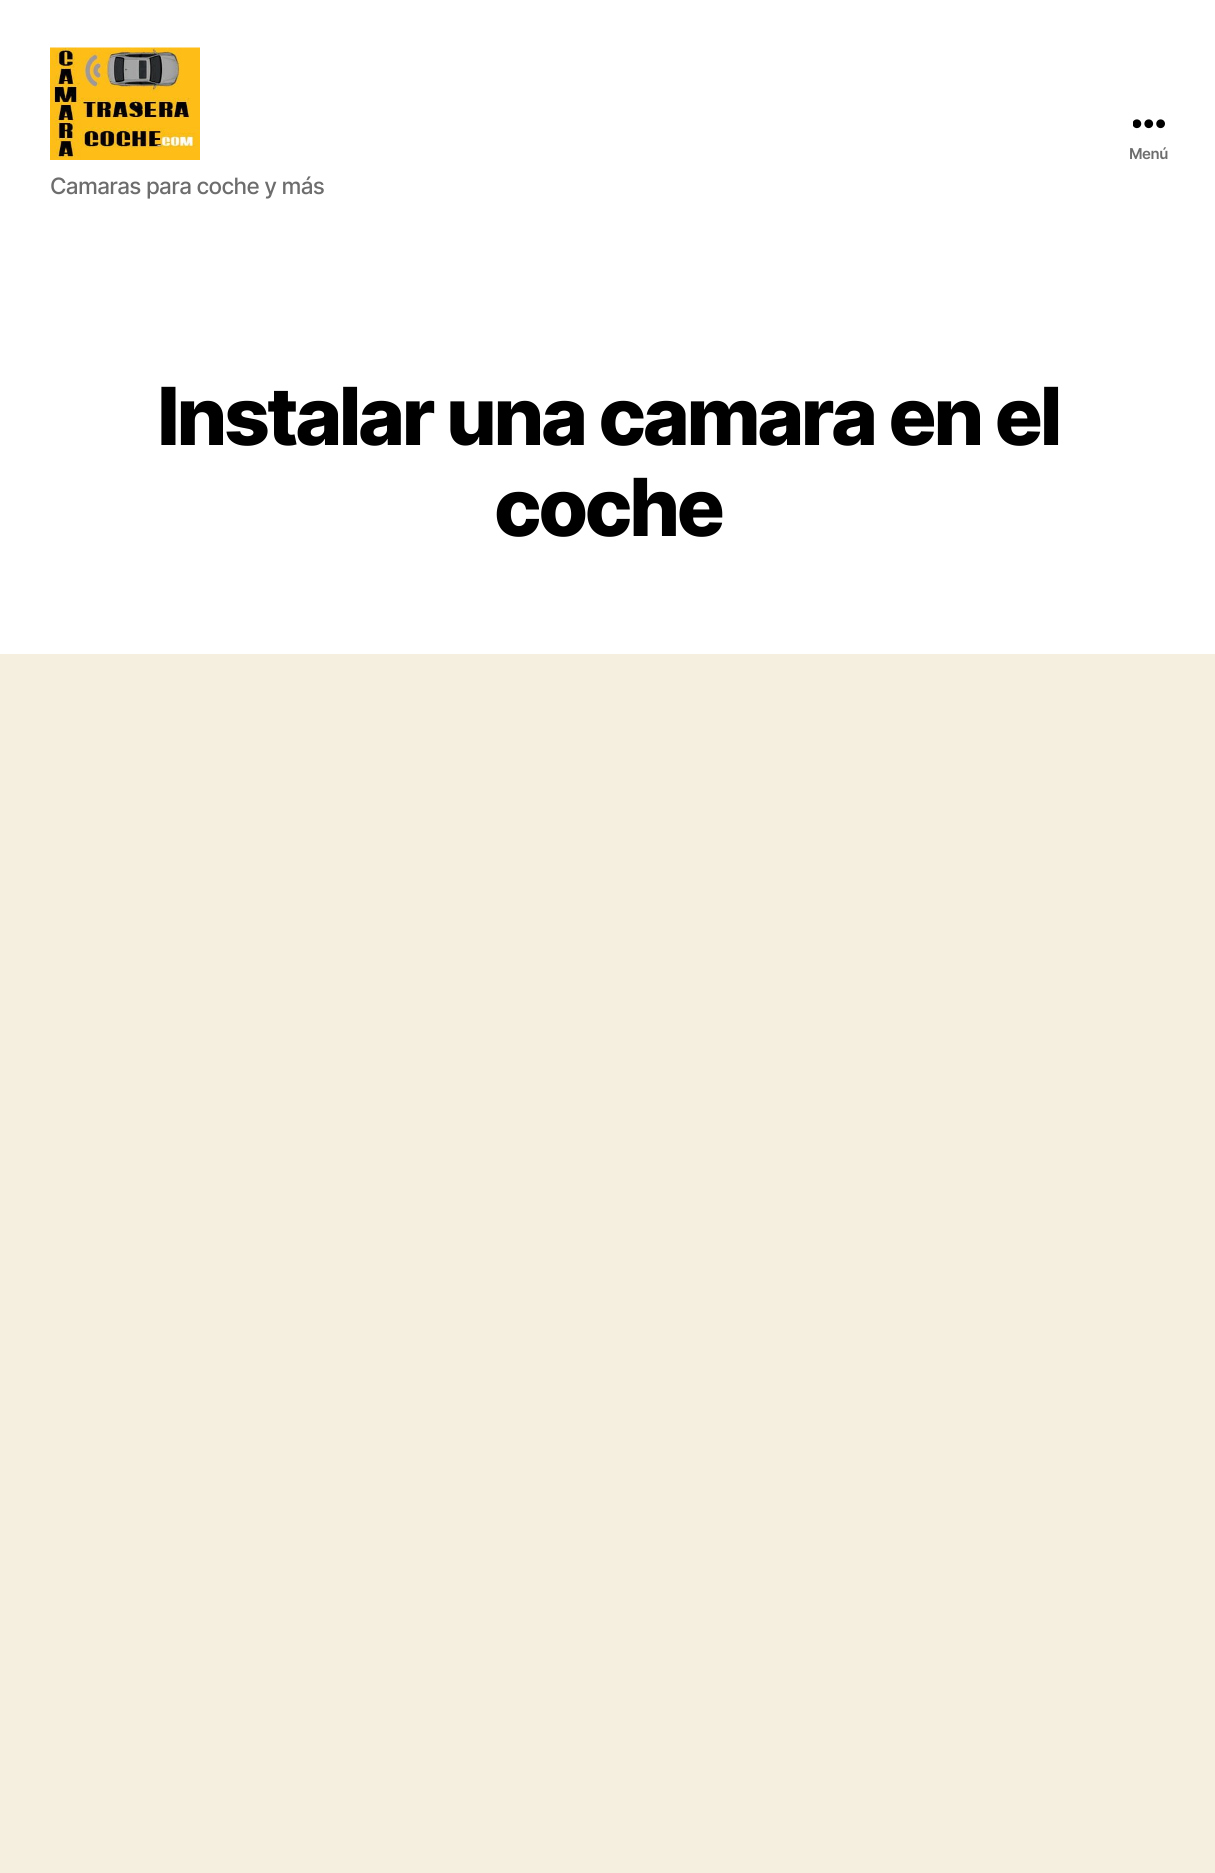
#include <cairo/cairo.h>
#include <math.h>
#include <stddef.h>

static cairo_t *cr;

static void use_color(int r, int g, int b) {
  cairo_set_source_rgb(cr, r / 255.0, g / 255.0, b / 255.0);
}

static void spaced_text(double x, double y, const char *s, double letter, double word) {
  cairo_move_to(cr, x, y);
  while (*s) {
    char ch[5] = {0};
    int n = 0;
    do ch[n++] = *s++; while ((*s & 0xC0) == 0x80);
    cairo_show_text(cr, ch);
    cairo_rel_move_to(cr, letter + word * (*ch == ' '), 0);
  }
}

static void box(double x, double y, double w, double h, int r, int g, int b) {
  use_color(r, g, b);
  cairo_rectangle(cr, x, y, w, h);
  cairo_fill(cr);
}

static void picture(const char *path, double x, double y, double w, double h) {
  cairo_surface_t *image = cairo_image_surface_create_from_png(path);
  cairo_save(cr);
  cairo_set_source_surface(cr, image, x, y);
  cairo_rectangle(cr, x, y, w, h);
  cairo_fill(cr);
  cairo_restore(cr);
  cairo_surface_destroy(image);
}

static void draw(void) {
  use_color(245, 239, 224);
  cairo_paint(cr);
  box(0, 0, 1215, 654, 255, 255, 255);
  picture("img_01.png", 1133, 119, 32, 10);
  picture("img_02.png", 50, 47, 150, 113);
  cairo_select_font_face(cr, "Inter SemiBold", CAIRO_FONT_SLANT_NORMAL, CAIRO_FONT_WEIGHT_NORMAL);
  cairo_set_font_size(cr, 15);
  use_color(109, 109, 109);
  spaced_text(1129, 159, "Menú", -0.5, 0);
  cairo_select_font_face(cr, "Inter Medium", CAIRO_FONT_SLANT_NORMAL, CAIRO_FONT_WEIGHT_NORMAL);
  cairo_set_font_size(cr, 22.5);
  spaced_text(50, 194, "Camaras para coche y más", -0.7, 0);
  cairo_select_font_face(cr, "Inter ExtraBold", CAIRO_FONT_SLANT_NORMAL, CAIRO_FONT_WEIGHT_NORMAL);
  cairo_set_font_size(cr, 80);
  use_color(0, 0, 0);
  spaced_text(157, 445, "Instalar una camara en el", -3.3, 0);
  spaced_text(494, 536, "coche", -3.3, 0);
}

int main(void) {
  cairo_surface_t *surface = cairo_image_surface_create(CAIRO_FORMAT_RGB24, 1215, 1873);
  cr = cairo_create(surface);
  cairo_font_options_t *options = cairo_font_options_create();
  cairo_font_options_set_hint_metrics(options, CAIRO_HINT_METRICS_OFF);
  cairo_font_options_set_hint_style(options, CAIRO_HINT_STYLE_NONE);
  cairo_set_font_options(cr, options);
  cairo_set_miter_limit(cr, 4);
  draw();
  cairo_surface_write_to_png(surface, "out.png");
  cairo_font_options_destroy(options);
  cairo_destroy(cr);
  cairo_surface_destroy(surface);
  return 0;
}
